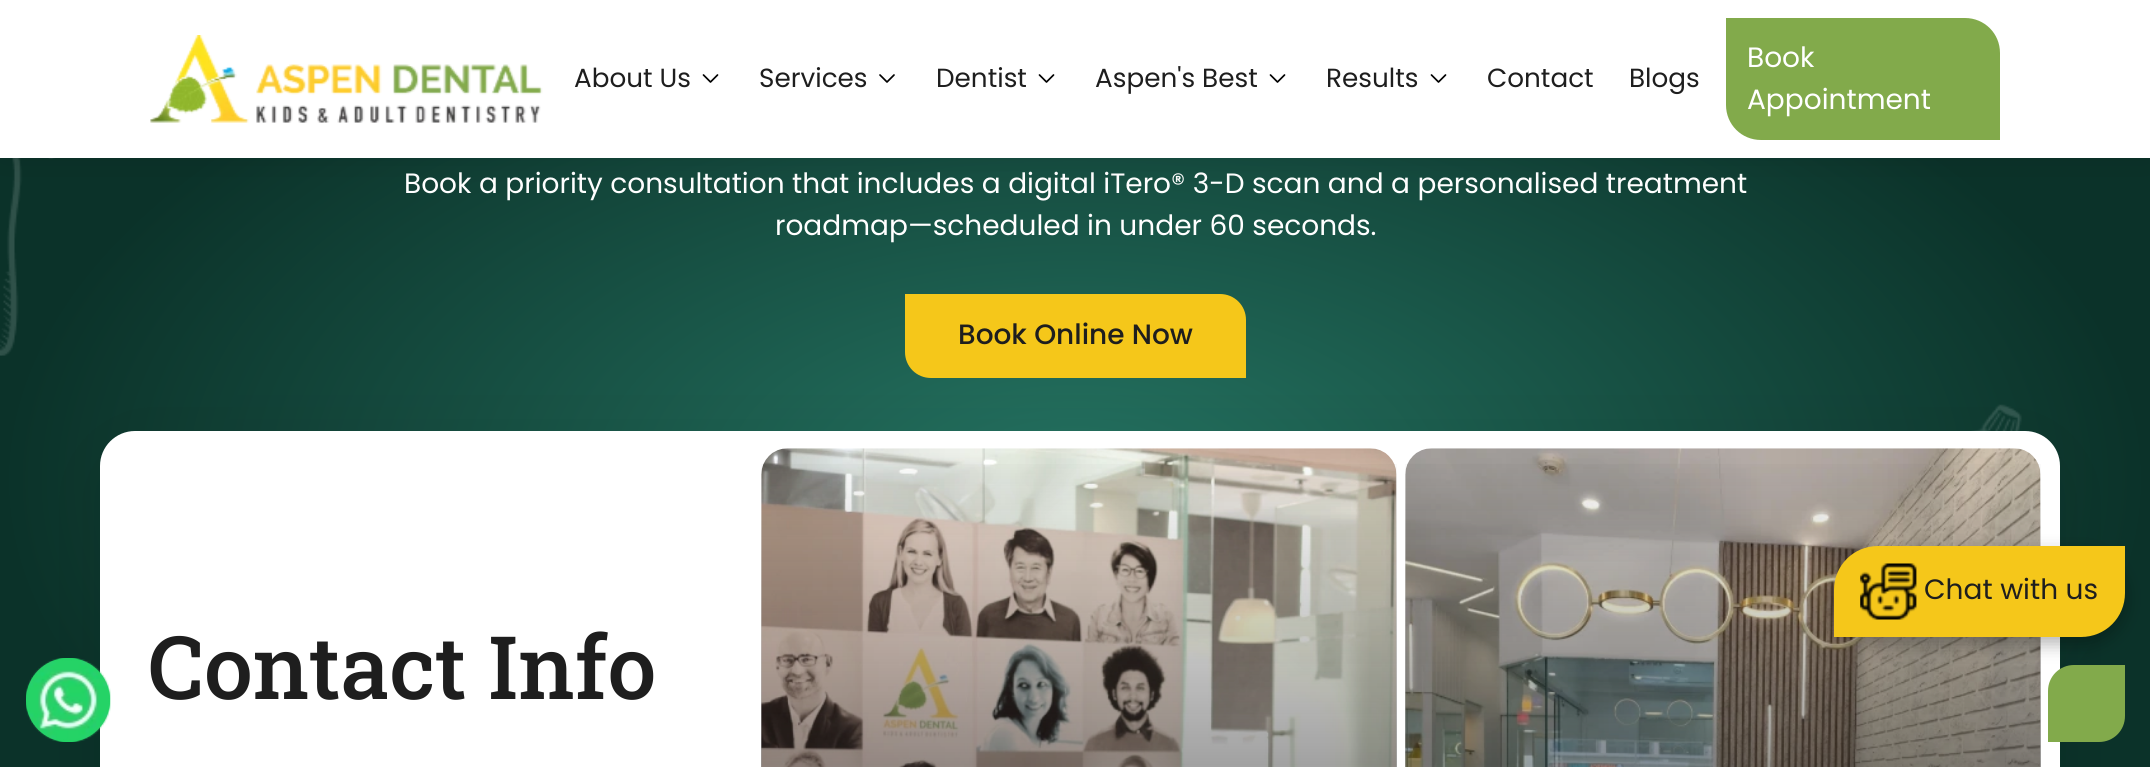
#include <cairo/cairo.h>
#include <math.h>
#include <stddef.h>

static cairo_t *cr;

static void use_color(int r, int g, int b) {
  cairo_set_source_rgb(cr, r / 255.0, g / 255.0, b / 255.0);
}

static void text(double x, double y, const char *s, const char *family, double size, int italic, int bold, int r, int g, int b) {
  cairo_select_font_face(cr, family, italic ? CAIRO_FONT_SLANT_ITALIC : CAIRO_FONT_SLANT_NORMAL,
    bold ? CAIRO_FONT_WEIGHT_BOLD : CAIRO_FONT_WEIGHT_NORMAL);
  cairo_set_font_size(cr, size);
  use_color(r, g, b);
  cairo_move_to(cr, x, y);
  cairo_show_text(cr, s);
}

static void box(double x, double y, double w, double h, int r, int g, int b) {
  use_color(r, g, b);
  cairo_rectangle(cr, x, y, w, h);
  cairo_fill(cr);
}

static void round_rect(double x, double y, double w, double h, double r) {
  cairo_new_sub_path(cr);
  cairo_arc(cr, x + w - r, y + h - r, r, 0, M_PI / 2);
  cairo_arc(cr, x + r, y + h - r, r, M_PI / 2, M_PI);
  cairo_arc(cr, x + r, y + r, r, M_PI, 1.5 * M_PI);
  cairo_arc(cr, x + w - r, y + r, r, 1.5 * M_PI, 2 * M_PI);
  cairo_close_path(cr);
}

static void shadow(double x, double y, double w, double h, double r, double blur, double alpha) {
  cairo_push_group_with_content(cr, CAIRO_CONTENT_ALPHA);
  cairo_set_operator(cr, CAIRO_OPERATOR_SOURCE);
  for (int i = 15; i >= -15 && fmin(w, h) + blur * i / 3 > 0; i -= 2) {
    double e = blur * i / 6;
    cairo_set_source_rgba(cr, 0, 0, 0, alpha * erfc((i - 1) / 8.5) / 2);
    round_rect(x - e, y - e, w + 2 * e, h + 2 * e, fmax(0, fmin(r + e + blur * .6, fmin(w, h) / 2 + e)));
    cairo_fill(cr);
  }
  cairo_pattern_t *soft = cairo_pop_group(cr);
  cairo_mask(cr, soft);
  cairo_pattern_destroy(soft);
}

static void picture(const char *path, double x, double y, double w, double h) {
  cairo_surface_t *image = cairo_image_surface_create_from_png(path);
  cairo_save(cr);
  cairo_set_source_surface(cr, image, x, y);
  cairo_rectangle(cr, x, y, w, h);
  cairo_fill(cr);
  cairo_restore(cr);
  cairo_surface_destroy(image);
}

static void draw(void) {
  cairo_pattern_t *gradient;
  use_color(255, 255, 255);
  cairo_paint(cr);
  gradient = cairo_pattern_create_radial(0, 0, 0, 0, 0, 1);
  cairo_pattern_set_matrix(gradient, &(cairo_matrix_t){1.0 / 1075, 0, 0, 1.0 / 546, -1.0 * 1075 / 1075, -1.0 * 480 / 546});
  cairo_pattern_add_color_stop_rgba(gradient, 0, 0.145, 0.455, 0.384, 1);
  cairo_pattern_add_color_stop_rgba(gradient, 1, 0.043, 0.196, 0.161, 1);
  cairo_set_source(cr, gradient);
  cairo_pattern_destroy(gradient);
  cairo_rectangle(cr, 0, 158, 2150, 609);
  cairo_fill(cr);
  text(404, 193, "Book a priority consultation that includes a digital iTero® 3-D scan and a personalised treatment", "Poppins", 28, 0, 0, 255, 255, 255);
  text(775, 235, "roadmap—scheduled in under 60 seconds.", "Poppins", 28, 0, 0, 255, 255, 255);
  picture("img_02.png", 0, 158, 2022, 273);
  use_color(0, 0, 0);
  shadow(0, 0, 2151, 158, 0, 16, 0.1);
  box(0, 0, 2150, 158, 255, 255, 255);
  text(1629, 87, "Blogs", "Poppins", 26.25, 0, 0, 30, 30, 30);
  text(1487, 87, "Contact", "Poppins", 26.25, 0, 0, 30, 30, 30);
  cairo_new_path(cr);
  cairo_move_to(cr, 1431.5, 75);
  cairo_line_to(cr, 1438.5, 82);
  cairo_line_to(cr, 1445.5, 75);
  use_color(0, 0, 0);
  cairo_set_line_width(cr, 1.7);
  cairo_set_line_cap(cr, CAIRO_LINE_CAP_ROUND);
  cairo_set_line_join(cr, CAIRO_LINE_JOIN_ROUND);
  cairo_stroke(cr);
  text(1326, 87, "Results", "Poppins", 26.25, 0, 0, 30, 30, 30);
  cairo_new_path(cr);
  cairo_move_to(cr, 1270.5, 75);
  cairo_line_to(cr, 1277.5, 82);
  cairo_line_to(cr, 1284.5, 75);
  use_color(0, 0, 0);
  cairo_stroke(cr);
  text(1095, 87, "Aspen's Best", "Poppins", 26.25, 0, 0, 30, 30, 30);
  cairo_new_path(cr);
  cairo_move_to(cr, 1039.5, 75);
  cairo_line_to(cr, 1046.5, 82);
  cairo_line_to(cr, 1053.5, 75);
  use_color(0, 0, 0);
  cairo_stroke(cr);
  text(936, 87, "Dentist", "Poppins", 26.25, 0, 0, 30, 30, 30);
  cairo_new_path(cr);
  cairo_move_to(cr, 880, 75);
  cairo_line_to(cr, 887, 82);
  cairo_line_to(cr, 894, 75);
  use_color(0, 0, 0);
  cairo_stroke(cr);
  text(759, 87, "Services", "Poppins", 26.25, 0, 0, 30, 30, 30);
  cairo_new_path(cr);
  cairo_move_to(cr, 703.5, 75);
  cairo_line_to(cr, 710.5, 82);
  cairo_line_to(cr, 717.5, 75);
  use_color(0, 0, 0);
  cairo_stroke(cr);
  text(574, 87, "About Us", "Poppins", 26.25, 0, 0, 30, 30, 30);
  use_color(130, 170, 75);
  cairo_new_path(cr);
  cairo_move_to(cr, 1726, 18);
  cairo_line_to(cr, 1965, 18);
  cairo_curve_to(cr, 1984.5, 18, 2000, 33.5, 2000, 53);
  cairo_line_to(cr, 2000, 140);
  cairo_line_to(cr, 1761, 140);
  cairo_curve_to(cr, 1741.5, 140, 1726, 124.5, 1726, 105);
  cairo_close_path(cr);
  cairo_fill(cr);
  text(1747, 109, "Appointment", "Poppins", 28, 0, 0, 255, 255, 255);
  text(1747, 67, "Book", "Poppins", 28, 0, 0, 255, 255, 255);
  picture("img_01.png", 150, 35, 393, 88);
  use_color(0, 0, 0);
  shadow(100, 448, 1960, 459, 35, 35, 0.1);
  use_color(245, 199, 26);
  cairo_new_path(cr);
  cairo_move_to(cr, 905, 294);
  cairo_line_to(cr, 1220, 294);
  cairo_curve_to(cr, 1234.5, 294, 1246, 305.5, 1246, 320);
  cairo_line_to(cr, 1246, 378);
  cairo_line_to(cr, 931, 378);
  cairo_curve_to(cr, 916.5, 378, 905, 366.5, 905, 352);
  cairo_close_path(cr);
  cairo_fill(cr);
  text(958, 344, "Book Online Now", "Poppins Medium", 28, 0, 0, 30, 30, 30);
  use_color(255, 255, 255);
  round_rect(100, 431, 1960, 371, 35);
  cairo_fill(cr);
  use_color(37, 211, 102);
  cairo_arc(cr, 68, 700, 42, 0, 2 * M_PI);
  cairo_fill(cr);
  picture("img_04.png", 26, 658, 85, 84);
  text(148, 699, "Contact Info", "Roboto Slab Medium", 87.5, 0, 0, 30, 30, 30);
  picture("img_05.png", 761, 448, 636, 319);
  gradient = cairo_pattern_create_linear(1079, 448, 1079, 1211);
  cairo_pattern_add_color_stop_rgba(gradient, 0, 0.118, 0.118, 0.118, 0);
  cairo_pattern_add_color_stop_rgba(gradient, 1, 0.118, 0.118, 0.118, 1);
  cairo_set_source(cr, gradient);
  cairo_pattern_destroy(gradient);
  cairo_rectangle(cr, 761, 464, 636, 303);
  cairo_fill(cr);
  picture("img_06.png", 1405, 448, 636, 319);
  gradient = cairo_pattern_create_linear(1723, 448, 1723, 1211);
  cairo_pattern_add_color_stop_rgba(gradient, 0, 0.118, 0.118, 0.118, 0);
  cairo_pattern_add_color_stop_rgba(gradient, 1, 0.118, 0.118, 0.118, 1);
  cairo_set_source(cr, gradient);
  cairo_pattern_destroy(gradient);
  cairo_rectangle(cr, 1405, 464, 636, 303);
  cairo_fill(cr);
  use_color(130, 170, 75);
  cairo_new_path(cr);
  cairo_move_to(cr, 2074, 665);
  cairo_line_to(cr, 2125, 665);
  cairo_line_to(cr, 2125, 716);
  cairo_curve_to(cr, 2125, 730.5, 2113.5, 742, 2099, 742);
  cairo_line_to(cr, 2048, 742);
  cairo_line_to(cr, 2048, 691);
  cairo_curve_to(cr, 2048, 676.5, 2059.5, 665, 2074, 665);
  cairo_close_path(cr);
  cairo_fill(cr);
  use_color(0, 0, 0);
  shadow(1834, 553, 291, 91, 44, 9, 0.3);
  use_color(245, 199, 26);
  cairo_new_path(cr);
  cairo_move_to(cr, 1878, 546);
  cairo_line_to(cr, 2125, 546);
  cairo_line_to(cr, 2125, 593);
  cairo_curve_to(cr, 2125, 617.5, 2105.5, 637, 2081, 637);
  cairo_line_to(cr, 1834, 637);
  cairo_line_to(cr, 1834, 590);
  cairo_curve_to(cr, 1834, 565.5, 1853.5, 546, 1878, 546);
  cairo_close_path(cr);
  cairo_fill(cr);
  text(1924, 599, "Chat with us", "Poppins", 28, 0, 0, 30, 30, 30);
  picture("img_03.png", 1860, 563, 57, 57);
}

int main(void) {
  cairo_surface_t *surface = cairo_image_surface_create(CAIRO_FORMAT_RGB24, 2150, 767);
  cr = cairo_create(surface);
  cairo_font_options_t *options = cairo_font_options_create();
  cairo_font_options_set_hint_metrics(options, CAIRO_HINT_METRICS_OFF);
  cairo_font_options_set_hint_style(options, CAIRO_HINT_STYLE_NONE);
  cairo_set_font_options(cr, options);
  cairo_set_miter_limit(cr, 4);
  draw();
  cairo_surface_write_to_png(surface, "out.png");
  cairo_font_options_destroy(options);
  cairo_destroy(cr);
  cairo_surface_destroy(surface);
  return 0;
}
